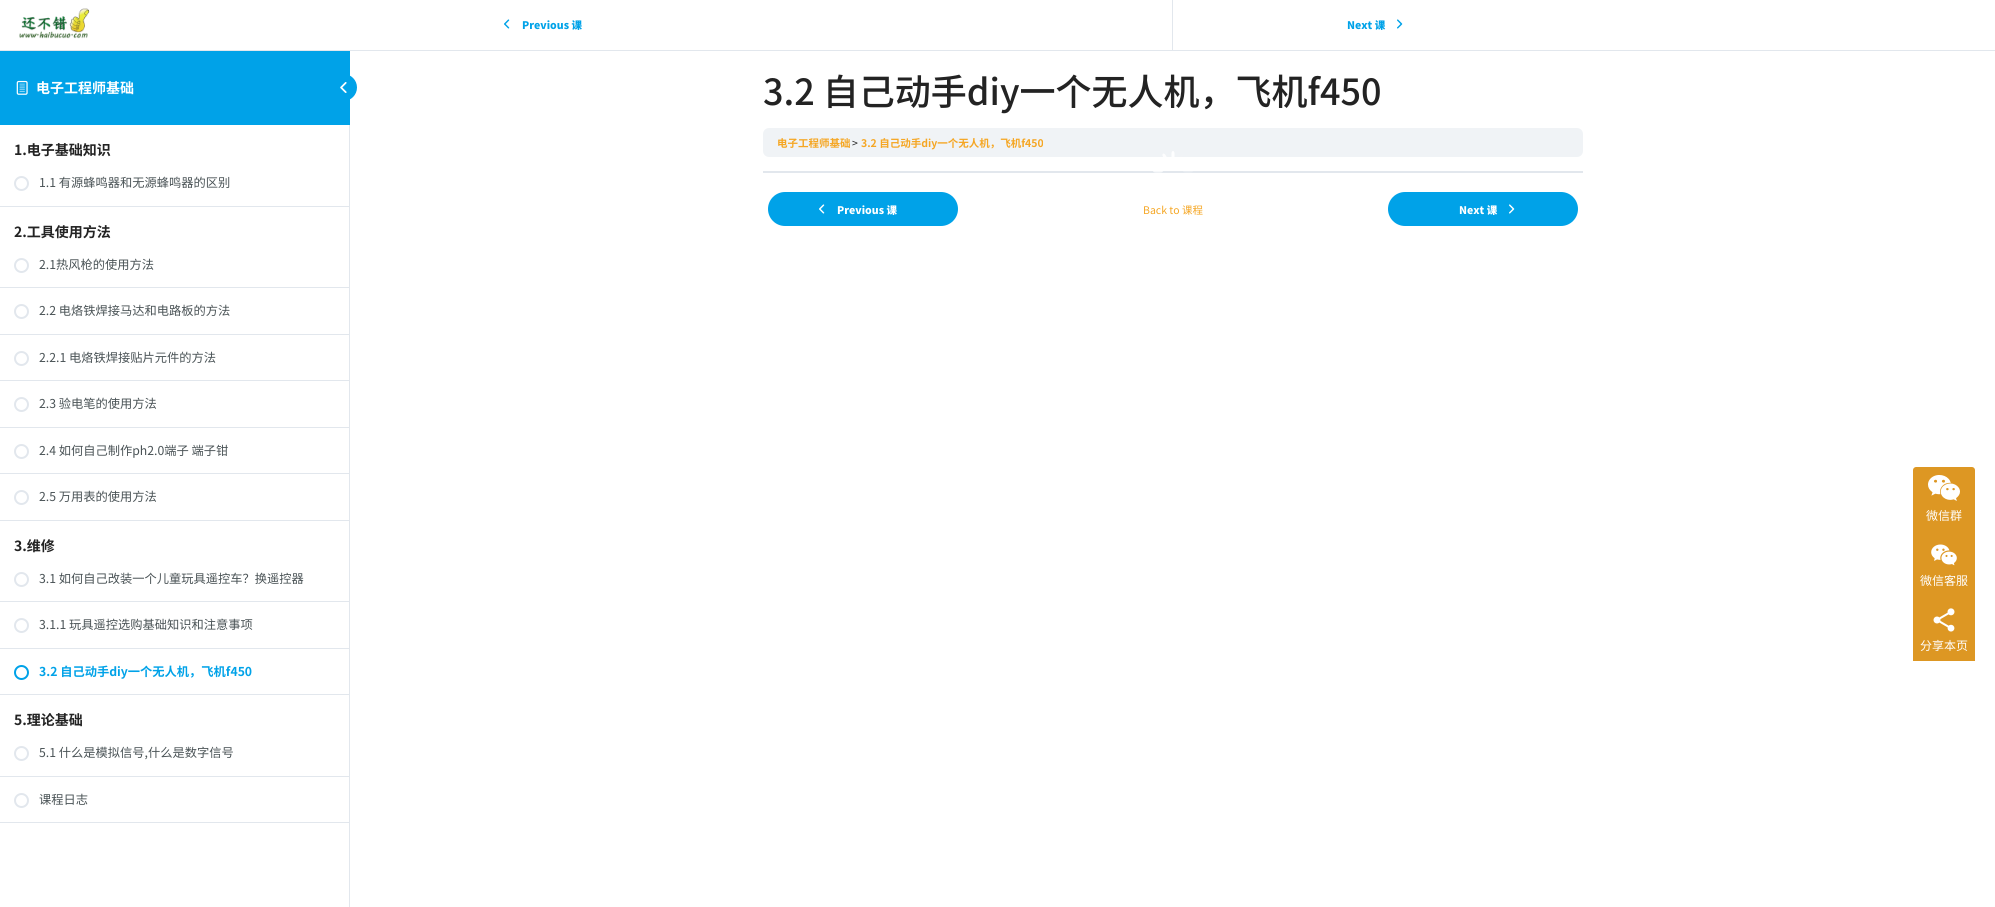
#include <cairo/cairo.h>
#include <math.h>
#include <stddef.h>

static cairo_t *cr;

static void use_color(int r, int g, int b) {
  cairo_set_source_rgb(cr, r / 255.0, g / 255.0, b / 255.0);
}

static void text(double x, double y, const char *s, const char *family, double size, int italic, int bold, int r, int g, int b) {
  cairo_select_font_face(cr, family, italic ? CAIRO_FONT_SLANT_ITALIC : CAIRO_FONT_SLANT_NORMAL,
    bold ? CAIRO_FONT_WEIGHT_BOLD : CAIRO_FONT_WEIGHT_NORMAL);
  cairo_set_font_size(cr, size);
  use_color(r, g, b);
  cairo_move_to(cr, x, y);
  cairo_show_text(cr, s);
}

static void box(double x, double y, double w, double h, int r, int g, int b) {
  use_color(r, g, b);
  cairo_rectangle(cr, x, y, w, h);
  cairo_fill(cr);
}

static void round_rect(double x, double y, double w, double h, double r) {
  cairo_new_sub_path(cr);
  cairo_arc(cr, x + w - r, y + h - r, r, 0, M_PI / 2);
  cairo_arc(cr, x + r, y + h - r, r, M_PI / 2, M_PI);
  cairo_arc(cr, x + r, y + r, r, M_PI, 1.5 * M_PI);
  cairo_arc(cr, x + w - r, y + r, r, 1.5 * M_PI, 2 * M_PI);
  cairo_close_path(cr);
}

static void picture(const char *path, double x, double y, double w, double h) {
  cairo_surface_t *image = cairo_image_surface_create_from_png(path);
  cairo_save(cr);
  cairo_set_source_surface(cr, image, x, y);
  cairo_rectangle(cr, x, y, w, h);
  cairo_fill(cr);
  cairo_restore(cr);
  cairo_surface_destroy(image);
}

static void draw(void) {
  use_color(255, 255, 255);
  cairo_paint(cr);
  box(349, 125, 1, 782, 226, 231, 237);
  box(0, 51, 350, 74, 0, 162, 232);
  picture("img_01.png", 16, 80, 12, 15);
  cairo_arc(cr, 343.5, 87.5, 13.5, 0, 2 * M_PI);
  cairo_fill(cr);
  picture("img_02.png", 340, 82, 7, 11);
  box(0, 206, 349, 1, 226, 231, 237);
  cairo_arc(cr, 21.5, 183.5, 6.5, 0, 2 * M_PI);
  cairo_stroke(cr);
  box(0, 287, 349, 1, 226, 231, 237);
  cairo_arc(cr, 21.5, 265.5, 6.5, 0, 2 * M_PI);
  cairo_stroke(cr);
  box(0, 334, 349, 1, 226, 231, 237);
  cairo_arc(cr, 21.5, 311.5, 6.5, 0, 2 * M_PI);
  cairo_stroke(cr);
  box(0, 380, 349, 1, 226, 231, 237);
  cairo_arc(cr, 21.5, 358.5, 6.5, 0, 2 * M_PI);
  cairo_stroke(cr);
  box(0, 427, 349, 1, 226, 231, 237);
  cairo_arc(cr, 21.5, 404.5, 6.5, 0, 2 * M_PI);
  cairo_stroke(cr);
  box(0, 473, 349, 1, 226, 231, 237);
  cairo_arc(cr, 21.5, 451.5, 6.5, 0, 2 * M_PI);
  cairo_stroke(cr);
  box(0, 520, 349, 1, 226, 231, 237);
  cairo_arc(cr, 21.5, 497.5, 6.5, 0, 2 * M_PI);
  cairo_stroke(cr);
  box(0, 601, 349, 1, 226, 231, 237);
  cairo_arc(cr, 21.5, 579.5, 6.5, 0, 2 * M_PI);
  cairo_stroke(cr);
  box(0, 648, 349, 1, 226, 231, 237);
  cairo_arc(cr, 21.5, 625.5, 6.5, 0, 2 * M_PI);
  cairo_stroke(cr);
  box(0, 694, 349, 1, 226, 231, 237);
  cairo_arc(cr, 21.5, 672.5, 6.5, 0, 2 * M_PI);
  use_color(0, 162, 232);
  cairo_stroke(cr);
  box(0, 776, 349, 1, 226, 231, 237);
  cairo_arc(cr, 21.5, 753.5, 6.5, 0, 2 * M_PI);
  cairo_stroke(cr);
  box(0, 822, 349, 1, 226, 231, 237);
  cairo_arc(cr, 21.5, 800.5, 6.5, 0, 2 * M_PI);
  cairo_stroke(cr);
  box(0, 50, 1995, 1, 226, 231, 237);
  picture("img_03.png", 19, 8, 71, 31);
  box(1172, 0, 1, 50, 226, 231, 237);
  picture("img_04.png", 504, 19, 6, 10);
  picture("img_05.png", 1397, 19, 6, 10);
  use_color(240, 243, 246);
  round_rect(763, 128, 820, 29, 6);
  cairo_fill(cr);
  box(763, 171, 820, 2, 226, 231, 237);
  picture("img_06.png", 1153, 151, 40, 22);
  use_color(0, 162, 232);
  round_rect(768, 192, 190, 34, 17);
  cairo_fill(cr);
  picture("img_07.png", 819, 204, 6, 10);
  round_rect(1388, 192, 190, 34, 17);
  cairo_fill(cr);
  picture("img_08.png", 1509, 204, 6, 10);
  use_color(245, 166, 35);
  cairo_new_path(cr);
  cairo_move_to(cr, 1916, 467);
  cairo_line_to(cr, 1972, 467);
  cairo_curve_to(cr, 1973.5, 467, 1975, 468.5, 1975, 470);
  cairo_line_to(cr, 1975, 531);
  cairo_line_to(cr, 1913, 531);
  cairo_line_to(cr, 1913, 470);
  cairo_curve_to(cr, 1913, 468.5, 1914.5, 467, 1916, 467);
  cairo_close_path(cr);
  cairo_fill(cr);
  cairo_set_source_rgba(cr, 0.008, 0.078, 0.133, 0.1);
  cairo_new_path(cr);
  cairo_move_to(cr, 1916, 467);
  cairo_line_to(cr, 1972, 467);
  cairo_curve_to(cr, 1973.5, 467, 1975, 468.5, 1975, 470);
  cairo_line_to(cr, 1975, 531);
  cairo_line_to(cr, 1913, 531);
  cairo_line_to(cr, 1913, 470);
  cairo_curve_to(cr, 1913, 468.5, 1914.5, 467, 1916, 467);
  cairo_close_path(cr);
  cairo_fill(cr);
  picture("img_09.png", 1928, 475, 32, 26);
  box(1913, 531, 62, 130, 221, 151, 35);
  picture("img_10.png", 1931, 544, 26, 22);
  picture("img_11.png", 1933, 608, 22, 24);
  text(36, 93, "电子工程师基础", "Noto Sans CJK SC", 14, 0, 1, 255, 255, 255);
  text(14, 155, "1.电子基础知识", "Noto Sans CJK SC", 14, 0, 1, 35, 35, 35);
  text(39, 187, "1.1 有源蜂鸣器和无源蜂鸣器的区别", "Noto Sans CJK SC", 12.25, 0, 0, 73, 82, 85);
  text(14, 237, "2.工具使用方法", "Noto Sans CJK SC", 14, 0, 1, 35, 35, 35);
  text(39, 269, "2.1热风枪的使用方法", "Noto Sans CJK SC", 12.25, 0, 0, 73, 82, 85);
  text(39, 315, "2.2 电烙铁焊接马达和电路板的方法", "Noto Sans CJK SC", 12.25, 0, 0, 73, 82, 85);
  text(39, 362, "2.2.1 电烙铁焊接贴片元件的方法", "Noto Sans CJK SC", 12.25, 0, 0, 73, 82, 85);
  text(39, 408, "2.3 验电笔的使用方法", "Noto Sans CJK SC", 12.25, 0, 0, 73, 82, 85);
  text(39, 455, "2.4 如何自己制作ph2.0端子 端子钳", "Noto Sans CJK SC", 12.25, 0, 0, 73, 82, 85);
  text(39, 501, "2.5 万用表的使用方法", "Noto Sans CJK SC", 12.25, 0, 0, 73, 82, 85);
  text(14, 551, "3.维修", "Noto Sans CJK SC", 14, 0, 1, 35, 35, 35);
  text(39, 583, "3.1 如何自己改装一个儿童玩具遥控车？换遥控器", "Noto Sans CJK SC", 12.25, 0, 0, 73, 82, 85);
  text(39, 629, "3.1.1 玩具遥控选购基础知识和注意事项", "Noto Sans CJK SC", 12.25, 0, 0, 73, 82, 85);
  text(39, 676, "3.2 自己动手diy一个无人机，飞机f450", "Noto Sans CJK SC", 12.25, 0, 1, 0, 162, 232);
  text(14, 725, "5.理论基础", "Noto Sans CJK SC", 14, 0, 1, 35, 35, 35);
  text(39, 757, "5.1 什么是模拟信号,什么是数字信号", "Noto Sans CJK SC", 12.25, 0, 0, 73, 82, 85);
  text(39, 804, "课程日志", "Noto Sans CJK SC", 12.25, 0, 0, 73, 82, 85);
  text(522, 29, "Previous 课", "Noto Sans CJK SC Black", 10.5, 0, 0, 0, 162, 232);
  text(1347, 29, "Next 课", "Noto Sans CJK SC Black", 10.5, 0, 0, 0, 162, 232);
  text(763, 105, "3.2 自己动手diy一个无人机，飞机f450", "Noto Sans CJK SC Medium", 36, 0, 0, 35, 35, 35);
  text(777, 147, "电子工程师基础", "Noto Sans CJK SC", 10.5, 0, 1, 245, 166, 35);
  text(852, 147, ">", "Noto Sans CJK SC", 10.5, 0, 0, 35, 35, 35);
  text(861, 147, "3.2 自己动手diy一个无人机，飞机f450", "Noto Sans CJK SC", 10.5, 0, 1, 245, 166, 35);
  text(837, 214, "Previous 课", "Noto Sans CJK SC Black", 10.5, 0, 0, 255, 255, 255);
  text(1143, 214, "Back to 课程", "Noto Sans CJK SC", 10.5, 0, 0, 245, 166, 35);
  text(1459, 214, "Next 课", "Noto Sans CJK SC Black", 10.5, 0, 0, 255, 255, 255);
  text(1926, 520, "微信群", "Noto Sans CJK SC", 12, 0, 0, 255, 255, 255);
  text(1920, 585, "微信客服", "Noto Sans CJK SC", 12, 0, 0, 255, 255, 255);
  text(1920, 650, "分享本页", "Noto Sans CJK SC", 12, 0, 0, 255, 255, 255);
}

int main(void) {
  cairo_surface_t *surface = cairo_image_surface_create(CAIRO_FORMAT_RGB24, 1995, 907);
  cr = cairo_create(surface);
  cairo_font_options_t *options = cairo_font_options_create();
  cairo_font_options_set_hint_metrics(options, CAIRO_HINT_METRICS_OFF);
  cairo_font_options_set_hint_style(options, CAIRO_HINT_STYLE_NONE);
  cairo_set_font_options(cr, options);
  cairo_set_miter_limit(cr, 4);
  draw();
  cairo_surface_write_to_png(surface, "out.png");
  cairo_font_options_destroy(options);
  cairo_destroy(cr);
  cairo_surface_destroy(surface);
  return 0;
}
